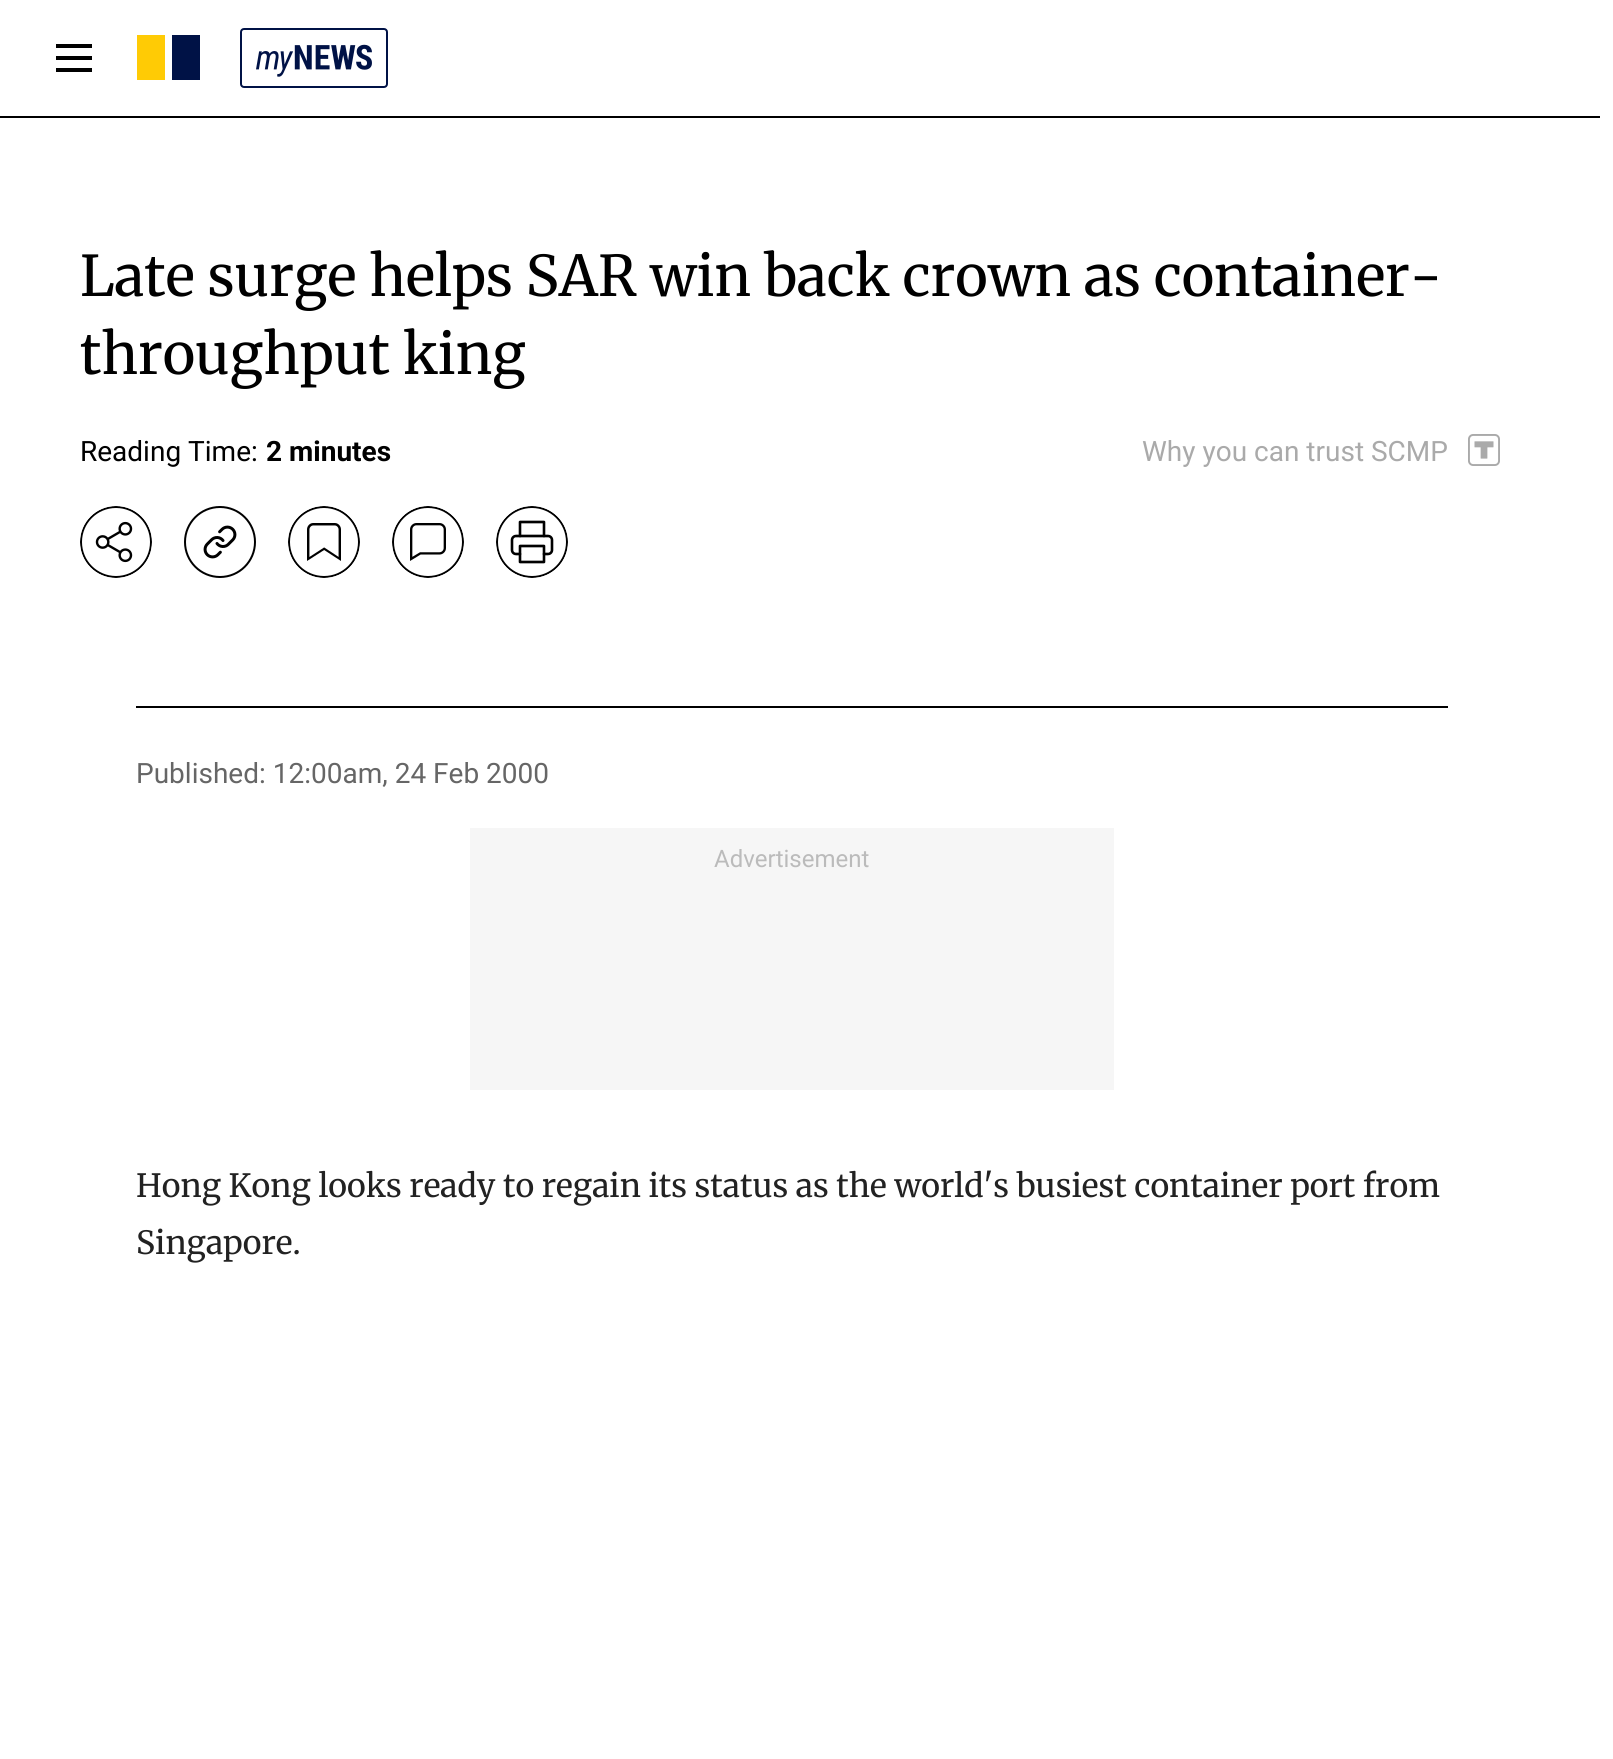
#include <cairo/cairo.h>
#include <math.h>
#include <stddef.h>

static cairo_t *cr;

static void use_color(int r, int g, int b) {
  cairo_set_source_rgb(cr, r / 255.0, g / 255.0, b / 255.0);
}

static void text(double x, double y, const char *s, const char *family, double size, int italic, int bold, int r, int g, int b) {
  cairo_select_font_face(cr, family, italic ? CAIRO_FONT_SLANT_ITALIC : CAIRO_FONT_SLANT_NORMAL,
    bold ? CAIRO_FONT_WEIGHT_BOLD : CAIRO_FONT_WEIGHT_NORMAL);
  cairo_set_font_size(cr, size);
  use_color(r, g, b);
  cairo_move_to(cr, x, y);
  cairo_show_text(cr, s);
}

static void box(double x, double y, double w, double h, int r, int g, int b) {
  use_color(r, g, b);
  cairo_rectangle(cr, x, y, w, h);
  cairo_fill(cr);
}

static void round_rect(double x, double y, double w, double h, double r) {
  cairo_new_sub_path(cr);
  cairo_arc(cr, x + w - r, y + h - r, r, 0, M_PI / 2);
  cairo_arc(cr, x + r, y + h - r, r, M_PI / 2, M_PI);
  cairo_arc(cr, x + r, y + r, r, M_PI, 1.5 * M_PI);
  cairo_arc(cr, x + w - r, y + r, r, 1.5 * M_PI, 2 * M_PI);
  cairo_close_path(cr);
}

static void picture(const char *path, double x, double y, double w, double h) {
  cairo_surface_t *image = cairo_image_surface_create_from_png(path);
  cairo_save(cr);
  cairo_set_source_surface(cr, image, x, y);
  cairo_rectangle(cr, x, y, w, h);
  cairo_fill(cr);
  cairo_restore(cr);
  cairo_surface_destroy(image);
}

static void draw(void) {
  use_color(255, 255, 255);
  cairo_paint(cr);
  box(0, 116, 1600, 2, 0, 0, 0);
  cairo_set_fill_rule(cr, CAIRO_FILL_RULE_EVEN_ODD);
  cairo_new_path(cr);
  cairo_move_to(cr, 56, 48);
  cairo_line_to(cr, 92, 48);
  cairo_line_to(cr, 92, 44);
  cairo_line_to(cr, 56, 44);
  cairo_close_path(cr);
  cairo_move_to(cr, 56, 60);
  cairo_line_to(cr, 92, 60);
  cairo_line_to(cr, 92, 56);
  cairo_line_to(cr, 56, 56);
  cairo_close_path(cr);
  cairo_move_to(cr, 92, 72);
  cairo_line_to(cr, 56, 72);
  cairo_line_to(cr, 56, 68);
  cairo_line_to(cr, 92, 68);
  cairo_close_path(cr);
  cairo_fill(cr);
  box(137, 35, 28, 45, 255, 203, 5);
  box(172, 35, 28, 45, 0, 18, 70);
  round_rect(241, 29, 146, 58, 3);
  cairo_stroke(cr);
  picture("img_01.png", 256, 44, 116, 33);
  picture("img_02.png", 1468, 434, 32, 32);
  picture("img_03.png", 80, 506, 72, 72);
  picture("img_04.png", 184, 506, 72, 72);
  picture("img_05.png", 288, 506, 72, 72);
  picture("img_06.png", 392, 506, 72, 72);
  picture("img_07.png", 496, 506, 72, 72);
  box(136, 706, 1312, 2, 0, 0, 0);
  box(470, 828, 644, 262, 246, 246, 246);
  text(80, 296, "Late surge helps SAR win back crown as container-", "Merriweather", 56, 0, 0, 0, 0, 0);
  text(80, 374, "throughput king", "Merriweather", 56, 0, 0, 0, 0, 0);
  text(80, 461, "Reading Time:", "Roboto", 28, 0, 0, 0, 0, 0);
  text(266, 461, "2 minutes", "Roboto", 28, 0, 1, 0, 0, 0);
  text(1142, 461, "Why you can trust SCMP", "Roboto", 28, 0, 0, 170, 170, 170);
  text(136, 783, "Published: 12:00am, 24 Feb 2000", "Roboto", 28, 0, 0, 102, 102, 102);
  text(714, 867, "Advertisement", "Roboto", 24, 0, 0, 187, 187, 187);
  text(136, 1197, "Hong Kong looks ready to regain its status as the world's busiest container port from", "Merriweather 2", 32, 0, 0, 34, 34, 34);
  text(136, 1254, "Singapore.", "Merriweather 2", 32, 0, 0, 34, 34, 34);
}

int main(void) {
  cairo_surface_t *surface = cairo_image_surface_create(CAIRO_FORMAT_RGB24, 1613, 1759);
  cr = cairo_create(surface);
  cairo_font_options_t *options = cairo_font_options_create();
  cairo_font_options_set_hint_metrics(options, CAIRO_HINT_METRICS_OFF);
  cairo_font_options_set_hint_style(options, CAIRO_HINT_STYLE_NONE);
  cairo_set_font_options(cr, options);
  cairo_set_miter_limit(cr, 4);
  draw();
  cairo_surface_write_to_png(surface, "out.png");
  cairo_font_options_destroy(options);
  cairo_destroy(cr);
  cairo_surface_destroy(surface);
  return 0;
}
